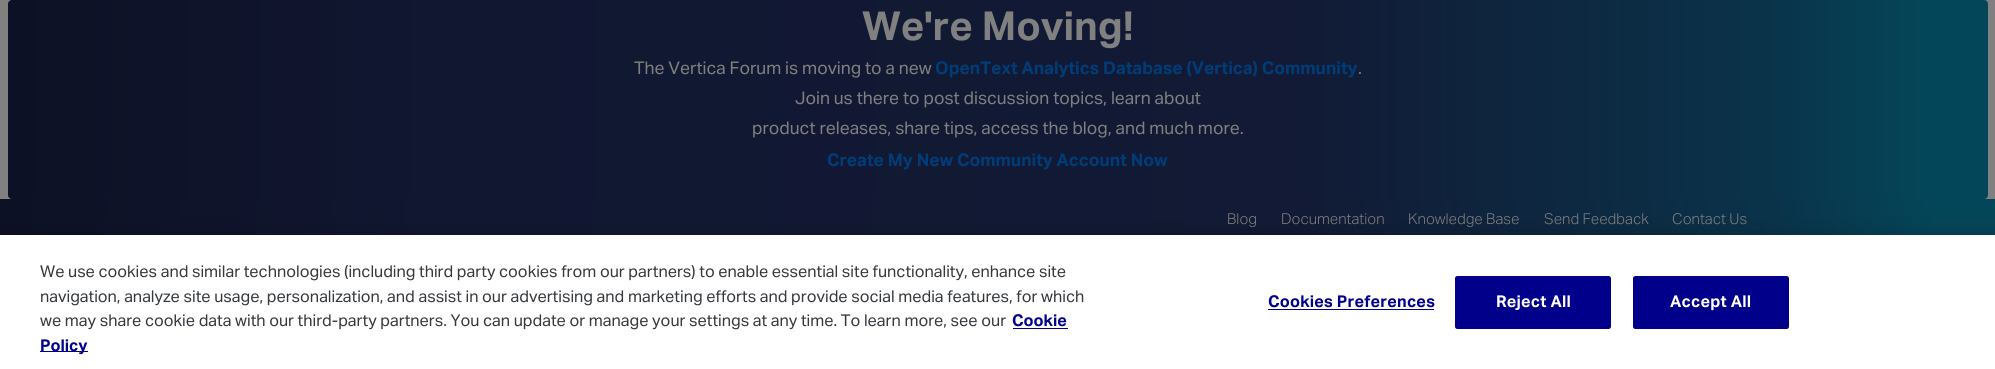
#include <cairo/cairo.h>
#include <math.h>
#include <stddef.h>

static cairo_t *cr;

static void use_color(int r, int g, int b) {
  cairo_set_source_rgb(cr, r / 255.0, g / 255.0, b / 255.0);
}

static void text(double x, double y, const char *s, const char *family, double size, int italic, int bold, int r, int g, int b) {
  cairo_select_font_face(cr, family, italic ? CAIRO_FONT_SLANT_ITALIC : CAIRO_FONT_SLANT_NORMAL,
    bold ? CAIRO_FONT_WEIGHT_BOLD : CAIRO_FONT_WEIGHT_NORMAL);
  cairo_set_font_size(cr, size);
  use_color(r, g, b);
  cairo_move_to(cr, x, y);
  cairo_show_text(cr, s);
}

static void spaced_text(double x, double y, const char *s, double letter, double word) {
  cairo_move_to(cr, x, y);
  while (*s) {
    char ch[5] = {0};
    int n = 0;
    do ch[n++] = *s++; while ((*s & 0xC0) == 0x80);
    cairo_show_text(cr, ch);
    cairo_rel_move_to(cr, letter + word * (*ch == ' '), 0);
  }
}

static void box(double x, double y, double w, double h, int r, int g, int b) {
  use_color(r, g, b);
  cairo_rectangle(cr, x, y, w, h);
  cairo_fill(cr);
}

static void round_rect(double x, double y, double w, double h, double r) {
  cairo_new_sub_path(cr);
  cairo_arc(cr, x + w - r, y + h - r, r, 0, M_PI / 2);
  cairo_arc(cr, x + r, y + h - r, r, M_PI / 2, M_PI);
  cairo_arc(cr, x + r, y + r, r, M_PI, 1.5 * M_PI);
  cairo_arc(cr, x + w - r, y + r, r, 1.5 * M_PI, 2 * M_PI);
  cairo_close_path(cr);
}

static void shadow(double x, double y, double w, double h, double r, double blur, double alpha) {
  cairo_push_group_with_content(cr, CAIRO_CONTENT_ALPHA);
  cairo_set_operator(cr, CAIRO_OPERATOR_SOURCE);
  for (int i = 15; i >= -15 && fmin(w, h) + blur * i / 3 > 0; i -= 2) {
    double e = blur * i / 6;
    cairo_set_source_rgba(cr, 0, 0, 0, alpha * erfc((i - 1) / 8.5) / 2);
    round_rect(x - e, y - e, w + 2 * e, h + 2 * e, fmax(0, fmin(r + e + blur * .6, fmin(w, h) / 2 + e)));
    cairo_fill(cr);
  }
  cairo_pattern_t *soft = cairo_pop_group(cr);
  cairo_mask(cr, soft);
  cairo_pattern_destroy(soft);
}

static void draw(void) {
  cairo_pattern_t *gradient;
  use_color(128, 128, 128);
  cairo_paint(cr);
  gradient = cairo_pattern_create_linear(7.5, 99, 1988, 99);
  cairo_pattern_add_color_stop_rgba(gradient, 0, 0.051, 0.067, 0.145, 1);
  cairo_pattern_add_color_stop_rgba(gradient, 0.22, 0.067, 0.09, 0.192, 1);
  cairo_pattern_add_color_stop_rgba(gradient, 0.65, 0.071, 0.102, 0.208, 1);
  cairo_pattern_add_color_stop_rgba(gradient, 0.89, 0.039, 0.2, 0.29, 1);
  cairo_pattern_add_color_stop_rgba(gradient, 0.97, 0.016, 0.275, 0.349, 1);
  cairo_set_source(cr, gradient);
  cairo_pattern_destroy(gradient);
  round_rect(8, 0, 1980, 199, 4);
  cairo_fill(cr);
  gradient = cairo_pattern_create_linear(0, 236, 1995, 236);
  cairo_pattern_add_color_stop_rgba(gradient, 0, 0.051, 0.067, 0.145, 1);
  cairo_pattern_add_color_stop_rgba(gradient, 0.22, 0.067, 0.09, 0.192, 1);
  cairo_pattern_add_color_stop_rgba(gradient, 0.65, 0.071, 0.102, 0.208, 1);
  cairo_pattern_add_color_stop_rgba(gradient, 0.89, 0.039, 0.2, 0.29, 1);
  cairo_pattern_add_color_stop_rgba(gradient, 0.97, 0.016, 0.275, 0.349, 1);
  cairo_set_source(cr, gradient);
  cairo_pattern_destroy(gradient);
  cairo_rectangle(cr, 0, 199, 1995, 36);
  cairo_fill(cr);
  use_color(0, 0, 0);
  shadow(0, 235, 1995, 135, 0, 11, 0.2);
  box(0, 235, 1995, 134, 255, 255, 255);
  box(1013, 328, 55, 1, 0, 0, 139);
  box(40, 351, 48, 1, 0, 0, 139);
  box(1268, 309, 166, 1, 0, 0, 139);
  round_rect(1455.5, 276.5, 155, 52, 2);
  cairo_fill_preserve(cr);
  cairo_set_line_width(cr, 1);
  cairo_stroke(cr);
  round_rect(1633.5, 276.5, 155, 52, 2);
  cairo_fill_preserve(cr);
  cairo_stroke(cr);
  text(862, 40, "We're Moving!", "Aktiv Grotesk", 40, 0, 1, 128, 128, 128);
  text(634, 74, "The Vertica Forum is moving to a new", "Aktiv Grotesk", 17.5, 0, 0, 128, 128, 128);
  text(935, 74, "OpenText Analytics Database (Vertica) Community", "Aktiv Grotesk", 17.5, 0, 1, 0, 61, 120);
  text(1358, 74, ".", "Aktiv Grotesk", 17.5, 0, 0, 128, 128, 128);
  text(795, 104, "Join us there to post discussion topics, learn about", "Aktiv Grotesk", 17.5, 0, 0, 128, 128, 128);
  text(752, 134, "product releases, share tips, access the blog, and much more.", "Aktiv Grotesk", 17.5, 0, 0, 128, 128, 128);
  text(827, 166, "Create My New Community Account Now", "Aktiv Grotesk", 17.5, 0, 1, 0, 61, 120);
  text(1227, 224, "Blog", "Aktiv Grotesk Light", 15, 0, 0, 128, 128, 128);
  text(1281, 224, "Documentation", "Aktiv Grotesk Light", 15, 0, 0, 128, 128, 128);
  text(1408, 224, "Knowledge Base", "Aktiv Grotesk Light", 15, 0, 0, 128, 128, 128);
  text(1544, 224, "Send Feedback", "Aktiv Grotesk Light", 15, 0, 0, 128, 128, 128);
  text(1672, 224, "Contact Us", "Aktiv Grotesk Light", 15, 0, 0, 128, 128, 128);
  text(40, 277, "We use cookies and similar technologies (including third party cookies from our partners) to enable essential site functionality, enhance site", "Aktiv Grotesk", 16.25, 0, 0, 53, 57, 61);
  text(40, 302, "navigation, analyze site usage, personalization, and assist in our advertising and marketing efforts and provide social media features, for which", "Aktiv Grotesk", 16.25, 0, 0, 53, 57, 61);
  text(40, 326, "we may share cookie data with our third-party partners. You can update or manage your settings at any time. To learn more, see our", "Aktiv Grotesk", 16.25, 0, 0, 53, 57, 61);
  text(1012, 326, "Cookie", "Aktiv Grotesk", 16.25, 0, 1, 0, 0, 139);
  text(40, 351, "Policy", "Aktiv Grotesk", 16.25, 0, 1, 0, 0, 139);
  spaced_text(1268, 307, "Cookies Preferences", 0.2, 0);
  use_color(255, 255, 255);
  spaced_text(1496, 307, "Reject All", 0.2, 0);
  spaced_text(1670, 307, "Accept All", 0.2, 0);
}

int main(void) {
  cairo_surface_t *surface = cairo_image_surface_create(CAIRO_FORMAT_RGB24, 1995, 369);
  cr = cairo_create(surface);
  cairo_font_options_t *options = cairo_font_options_create();
  cairo_font_options_set_hint_metrics(options, CAIRO_HINT_METRICS_OFF);
  cairo_font_options_set_hint_style(options, CAIRO_HINT_STYLE_NONE);
  cairo_set_font_options(cr, options);
  cairo_set_miter_limit(cr, 4);
  draw();
  cairo_surface_write_to_png(surface, "out.png");
  cairo_font_options_destroy(options);
  cairo_destroy(cr);
  cairo_surface_destroy(surface);
  return 0;
}
